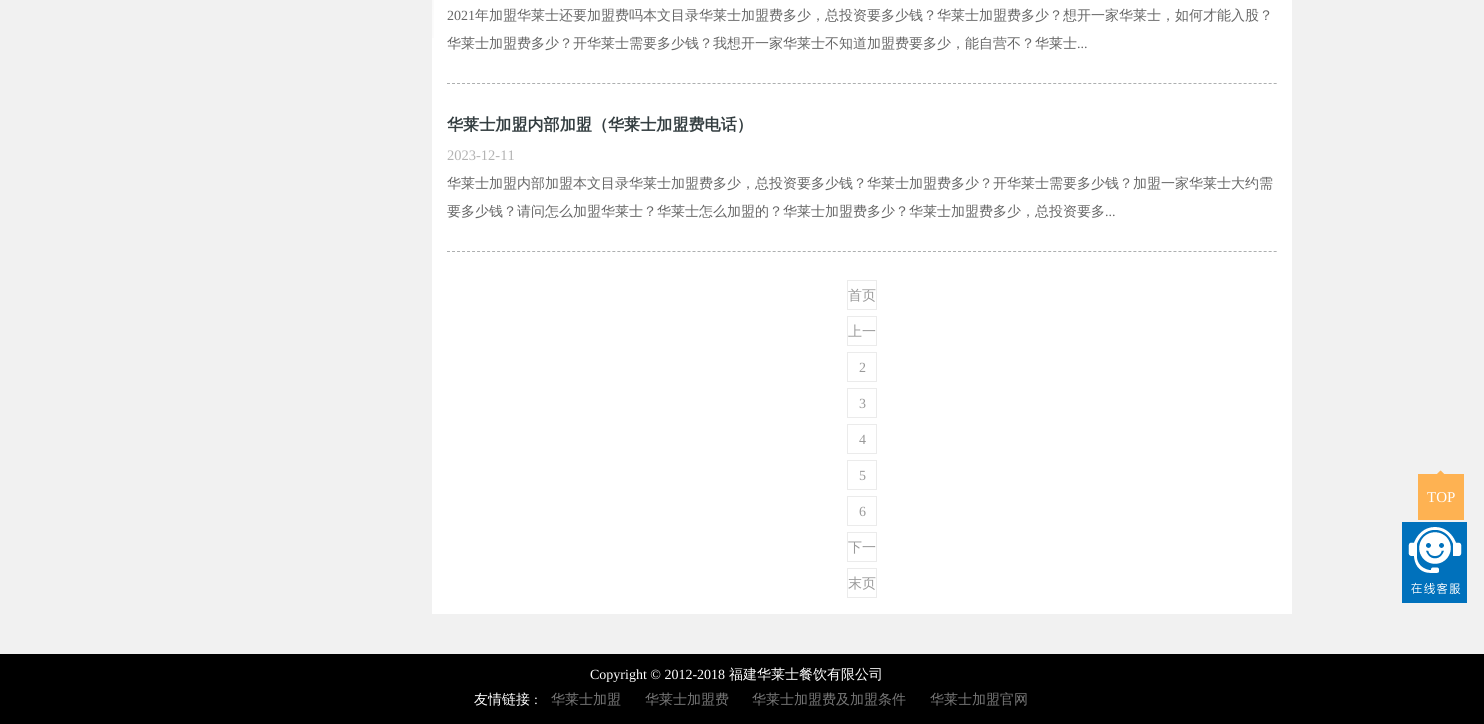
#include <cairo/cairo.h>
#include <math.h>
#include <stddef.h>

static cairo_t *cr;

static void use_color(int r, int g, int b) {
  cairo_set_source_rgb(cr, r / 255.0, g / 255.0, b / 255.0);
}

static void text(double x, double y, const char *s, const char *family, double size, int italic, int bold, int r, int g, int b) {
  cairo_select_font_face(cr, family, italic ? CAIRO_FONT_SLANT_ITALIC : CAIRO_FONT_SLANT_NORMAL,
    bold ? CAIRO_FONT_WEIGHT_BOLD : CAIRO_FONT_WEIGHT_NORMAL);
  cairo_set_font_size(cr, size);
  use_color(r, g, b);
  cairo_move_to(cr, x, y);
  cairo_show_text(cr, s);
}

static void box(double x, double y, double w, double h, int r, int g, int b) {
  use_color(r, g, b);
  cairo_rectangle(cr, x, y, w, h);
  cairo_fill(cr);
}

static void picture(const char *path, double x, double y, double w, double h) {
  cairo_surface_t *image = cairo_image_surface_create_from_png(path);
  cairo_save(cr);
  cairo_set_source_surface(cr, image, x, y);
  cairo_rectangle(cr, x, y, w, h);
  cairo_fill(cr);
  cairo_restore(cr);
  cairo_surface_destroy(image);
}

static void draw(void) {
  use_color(241, 241, 241);
  cairo_paint(cr);
  box(432, 0, 860, 614, 255, 255, 255);
  picture("img_01.png", 432, 0, 2, 38);
  cairo_new_path(cr);
  cairo_move_to(cr, 447, 83.5);
  cairo_line_to(cr, 1277, 83.5);
  use_color(173, 175, 176);
  cairo_set_line_width(cr, 1);
  cairo_set_dash(cr, (double[]){3, 2.01}, 2, 0);
  cairo_stroke(cr);
  cairo_new_path(cr);
  cairo_move_to(cr, 447, 251.5);
  cairo_line_to(cr, 1277, 251.5);
  cairo_stroke(cr);
  cairo_rectangle(cr, 847.5, 280.5, 29, 29);
  use_color(235, 235, 235);
  cairo_set_dash(cr, NULL, 0, 0);
  cairo_stroke(cr);
  cairo_rectangle(cr, 847.5, 316.5, 29, 29);
  cairo_stroke(cr);
  cairo_rectangle(cr, 847.5, 352.5, 29, 29);
  cairo_stroke(cr);
  cairo_rectangle(cr, 847.5, 388.5, 29, 29);
  cairo_stroke(cr);
  cairo_rectangle(cr, 847.5, 424.5, 29, 29);
  cairo_stroke(cr);
  cairo_rectangle(cr, 847.5, 460.5, 29, 29);
  cairo_stroke(cr);
  cairo_rectangle(cr, 847.5, 496.5, 29, 29);
  cairo_stroke(cr);
  cairo_rectangle(cr, 847.5, 532.5, 29, 29);
  cairo_stroke(cr);
  cairo_rectangle(cr, 847.5, 568.5, 29, 29);
  cairo_stroke(cr);
  box(0, 654, 1484, 70, 0, 0, 0);
  box(1418, 474, 46, 46, 254, 178, 82);
  picture("img_02.png", 1437, 470, 8, 4);
  picture("img_03.png", 1402, 522, 65, 81);
  text(447, 20, "2021", "Liberation Serif", 14, 0, 0, 102, 102, 102);
  text(475, 20, "年加盟华莱士还要加盟费吗本文目录华莱士加盟费多少，总投资要多少钱？华莱士加盟费多少？想开一家华莱士，如何才能入股？", "WenQuanYi Zen Hei Medium", 14, 0, 0, 102, 102, 102);
  text(447, 48, "华莱士加盟费多少？开华莱士需要多少钱？我想开一家华莱士不知道加盟费要多少，能自营不？华莱士", "WenQuanYi Zen Hei Medium", 14, 0, 0, 102, 102, 102);
  text(1077, 48, "...", "Liberation Serif", 14, 0, 0, 102, 102, 102);
  text(447, 130, "华莱士加盟内部加盟（华莱士加盟费电话）", "WenQuanYi Zen Hei", 16.1, 0, 1, 51, 61, 64);
  text(447, 160, "2023-12-11", "Liberation Serif", 14.5, 0, 0, 179, 179, 179);
  text(447, 188, "华莱士加盟内部加盟本文目录华莱士加盟费多少，总投资要多少钱？华莱士加盟费多少？开华莱士需要多少钱？加盟一家华莱士大约需", "WenQuanYi Zen Hei Medium", 14, 0, 0, 102, 102, 102);
  text(447, 216, "要多少钱？请问怎么加盟华莱士？华莱士怎么加盟的？华莱士加盟费多少？华莱士加盟费多少，总投资要多", "WenQuanYi Zen Hei Medium", 14, 0, 0, 102, 102, 102);
  text(1105, 216, "...", "Liberation Serif", 14, 0, 0, 102, 102, 102);
  text(848, 300, "首页", "WenQuanYi Zen Hei Medium", 14, 0, 0, 153, 153, 153);
  text(848, 336, "上一", "WenQuanYi Zen Hei Medium", 14, 0, 0, 153, 153, 153);
  text(859, 372, "2", "Liberation Serif", 14, 0, 0, 153, 153, 153);
  text(859, 408, "3", "Liberation Serif", 14, 0, 0, 153, 153, 153);
  text(859, 444, "4", "Liberation Serif", 14, 0, 0, 153, 153, 153);
  text(859, 480, "5", "Liberation Serif", 14, 0, 0, 153, 153, 153);
  text(859, 516, "6", "Liberation Serif", 14, 0, 0, 153, 153, 153);
  text(848, 552, "下一", "WenQuanYi Zen Hei Medium", 14, 0, 0, 153, 153, 153);
  text(848, 588, "末页", "WenQuanYi Zen Hei Medium", 14, 0, 0, 153, 153, 153);
  text(1427, 502, "TOP", "Liberation Serif", 15, 0, 0, 255, 255, 255);
  text(590, 679, "Copyright © 2012-2018", "Liberation Serif", 14, 0, 0, 255, 255, 255);
  text(729, 679, "福建华莱士餐饮有限公司", "WenQuanYi Zen Hei Medium", 14, 0, 0, 255, 255, 255);
  text(474, 704, "友情链接", "WenQuanYi Zen Hei Medium", 14, 0, 0, 255, 255, 255);
  text(534, 704, ":", "Liberation Serif", 14, 0, 0, 255, 255, 255);
  text(551, 704, "华莱士加盟", "WenQuanYi Zen Hei Medium", 14, 0, 0, 119, 119, 119);
  text(645, 704, "华莱士加盟费", "WenQuanYi Zen Hei Medium", 14, 0, 0, 119, 119, 119);
  text(752, 704, "华莱士加盟费及加盟条件", "WenQuanYi Zen Hei Medium", 14, 0, 0, 119, 119, 119);
  text(930, 704, "华莱士加盟官网", "WenQuanYi Zen Hei Medium", 14, 0, 0, 119, 119, 119);
}

int main(void) {
  cairo_surface_t *surface = cairo_image_surface_create(CAIRO_FORMAT_RGB24, 1484, 724);
  cr = cairo_create(surface);
  cairo_font_options_t *options = cairo_font_options_create();
  cairo_font_options_set_hint_metrics(options, CAIRO_HINT_METRICS_OFF);
  cairo_font_options_set_hint_style(options, CAIRO_HINT_STYLE_NONE);
  cairo_set_font_options(cr, options);
  cairo_set_miter_limit(cr, 4);
  draw();
  cairo_surface_write_to_png(surface, "out.png");
  cairo_font_options_destroy(options);
  cairo_destroy(cr);
  cairo_surface_destroy(surface);
  return 0;
}
